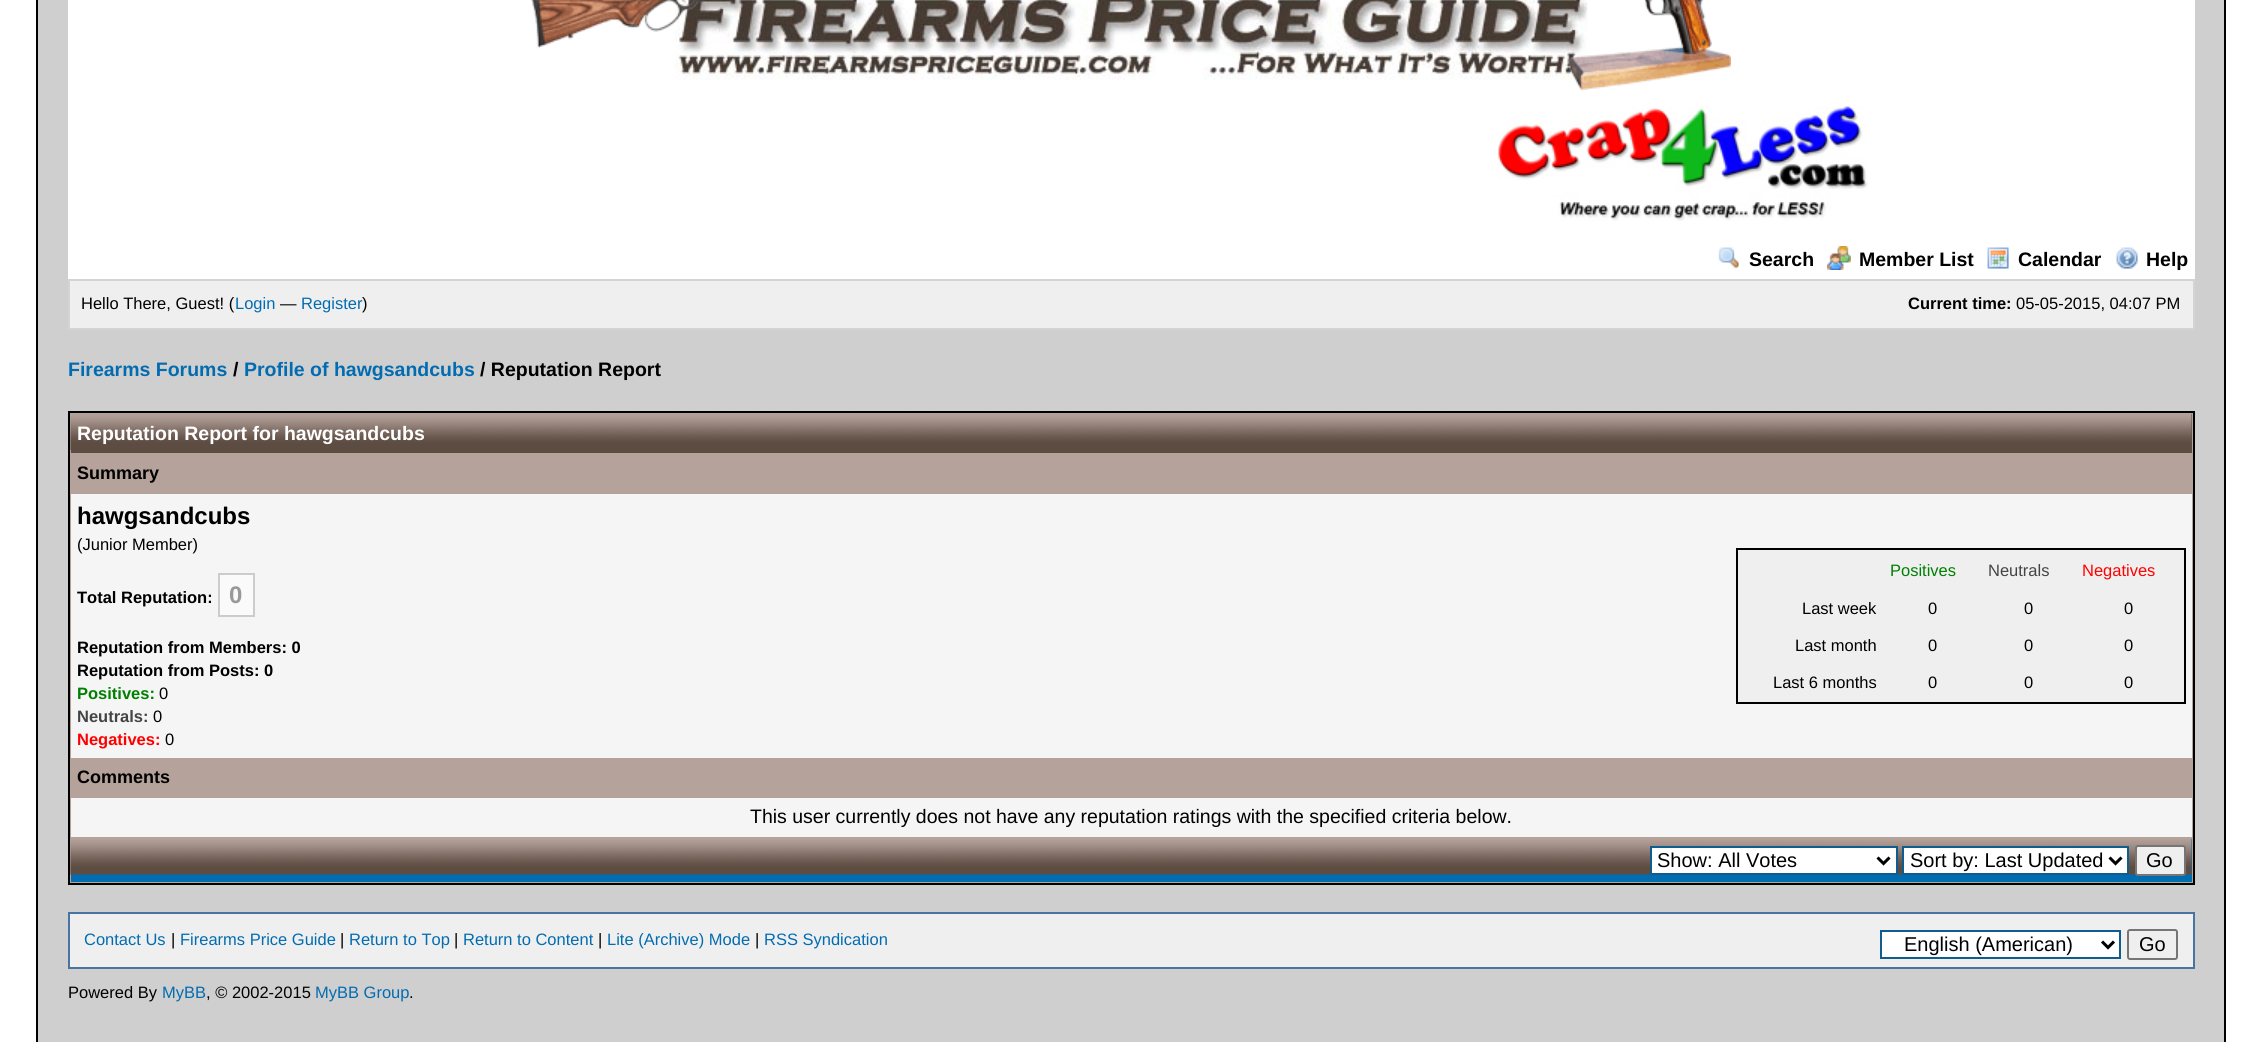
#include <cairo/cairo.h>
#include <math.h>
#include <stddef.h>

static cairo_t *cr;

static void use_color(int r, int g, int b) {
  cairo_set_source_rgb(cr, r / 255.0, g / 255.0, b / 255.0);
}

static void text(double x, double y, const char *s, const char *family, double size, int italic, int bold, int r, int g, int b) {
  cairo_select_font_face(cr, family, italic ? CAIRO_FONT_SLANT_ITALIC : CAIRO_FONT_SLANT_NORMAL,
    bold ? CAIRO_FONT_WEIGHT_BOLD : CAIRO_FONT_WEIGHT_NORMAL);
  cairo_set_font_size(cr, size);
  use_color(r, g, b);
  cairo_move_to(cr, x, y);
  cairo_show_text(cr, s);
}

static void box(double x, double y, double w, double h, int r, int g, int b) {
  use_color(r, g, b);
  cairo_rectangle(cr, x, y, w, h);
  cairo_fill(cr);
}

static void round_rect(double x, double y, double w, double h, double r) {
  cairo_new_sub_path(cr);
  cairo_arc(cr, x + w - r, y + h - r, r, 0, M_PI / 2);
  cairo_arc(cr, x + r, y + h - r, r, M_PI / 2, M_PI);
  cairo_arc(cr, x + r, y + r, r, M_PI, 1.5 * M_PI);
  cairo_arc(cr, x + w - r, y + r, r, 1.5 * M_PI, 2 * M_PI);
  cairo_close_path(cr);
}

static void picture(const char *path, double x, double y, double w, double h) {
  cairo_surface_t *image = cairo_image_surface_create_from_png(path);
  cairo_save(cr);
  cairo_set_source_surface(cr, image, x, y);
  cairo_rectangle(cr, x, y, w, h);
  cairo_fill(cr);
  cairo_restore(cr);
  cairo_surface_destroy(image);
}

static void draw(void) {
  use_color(255, 255, 255);
  cairo_paint(cr);
  use_color(208, 207, 207);
  cairo_rectangle(cr, 37, -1, 2188, 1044);
  cairo_fill_preserve(cr);
  use_color(0, 0, 0);
  cairo_stroke(cr);
  box(68, 0, 2127, 279, 255, 255, 255);
  picture("img_01.png", 531, 0, 1200, 90);
  picture("img_02.png", 1497, 106, 371, 115);
  picture("img_03.png", 1718, 247, 21, 22);
  picture("img_04.png", 1827, 246, 24, 24);
  picture("img_05.png", 1987, 247, 22, 22);
  picture("img_06.png", 2116, 247, 22, 22);
  use_color(239, 239, 239);
  cairo_rectangle(cr, 69, 280, 2125, 49);
  cairo_fill_preserve(cr);
  use_color(212, 212, 212);
  cairo_stroke(cr);
  use_color(181, 162, 155);
  cairo_rectangle(cr, 69, 412, 2125, 472);
  cairo_fill_preserve(cr);
  use_color(0, 0, 0);
  cairo_stroke(cr);
  box(71, 414, 2121, 39, 93, 76, 66);
  picture("img_07.png", 70, 414, 2122, 36);
  box(71, 494, 2121, 264, 245, 245, 245);
  use_color(250, 250, 250);
  cairo_rectangle(cr, 219, 574, 35, 42);
  cairo_fill_preserve(cr);
  use_color(204, 204, 204);
  cairo_stroke(cr);
  use_color(239, 239, 239);
  cairo_rectangle(cr, 1737, 549, 448, 154);
  cairo_fill_preserve(cr);
  use_color(0, 0, 0);
  cairo_stroke(cr);
  box(71, 798, 2121, 39, 245, 245, 245);
  box(71, 839, 2121, 43, 2, 108, 177);
  picture("img_08.png", 70, 839, 2122, 36);
  use_color(255, 255, 255);
  cairo_rectangle(cr, 1651, 847, 246, 27);
  cairo_fill_preserve(cr);
  use_color(15, 92, 142);
  cairo_stroke(cr);
  cairo_new_path(cr);
  cairo_move_to(cr, 1877.5, 857.5);
  cairo_line_to(cr, 1883.5, 863.5);
  cairo_line_to(cr, 1889.5, 857.5);
  use_color(0, 0, 0);
  cairo_set_line_width(cr, 3);
  cairo_stroke(cr);
  use_color(255, 255, 255);
  cairo_rectangle(cr, 1903, 847, 225, 27);
  cairo_fill_preserve(cr);
  use_color(15, 92, 142);
  cairo_set_line_width(cr, 2);
  cairo_stroke(cr);
  cairo_new_path(cr);
  cairo_move_to(cr, 2109.5, 857.5);
  cairo_line_to(cr, 2115.5, 863.5);
  cairo_line_to(cr, 2121.5, 857.5);
  use_color(0, 0, 0);
  cairo_set_line_width(cr, 3);
  cairo_stroke(cr);
  use_color(239, 239, 239);
  round_rect(2136, 846, 49, 29, 2);
  cairo_fill_preserve(cr);
  use_color(118, 118, 118);
  cairo_set_line_width(cr, 2);
  cairo_stroke(cr);
  use_color(239, 239, 239);
  cairo_rectangle(cr, 69, 913, 2125, 55);
  cairo_fill_preserve(cr);
  use_color(72, 116, 163);
  cairo_stroke(cr);
  use_color(255, 255, 255);
  cairo_rectangle(cr, 1881, 931, 239, 27);
  cairo_fill_preserve(cr);
  use_color(15, 92, 142);
  cairo_stroke(cr);
  cairo_new_path(cr);
  cairo_move_to(cr, 2102, 941.5);
  cairo_line_to(cr, 2108, 947.5);
  cairo_line_to(cr, 2114, 941.5);
  use_color(0, 0, 0);
  cairo_set_line_width(cr, 3);
  cairo_stroke(cr);
  round_rect(2128, 930, 49, 29, 2);
  use_color(118, 118, 118);
  cairo_set_line_width(cr, 2);
  cairo_stroke(cr);
  text(1749, 266, "Search", "Liberation Sans", 19.5, 0, 1, 0, 0, 0);
  text(1859, 266, "Member List", "Liberation Sans", 19.5, 0, 1, 0, 0, 0);
  text(2018, 266, "Calendar", "Liberation Sans", 19.5, 0, 1, 0, 0, 0);
  text(2146, 266, "Help", "Liberation Sans", 19.5, 0, 1, 0, 0, 0);
  text(81, 309, "Hello There, Guest! (", "Liberation Sans", 16.5, 0, 0, 0, 0, 0);
  text(235, 309, "Login", "Liberation Sans", 16.5, 0, 0, 2, 108, 177);
  text(280, 309, "—", "Liberation Sans", 16.5, 0, 0, 0, 0, 0);
  text(301, 309, "Register", "Liberation Sans", 16.5, 0, 0, 2, 108, 177);
  text(362, 309, ")", "Liberation Sans", 16.5, 0, 0, 0, 0, 0);
  text(1908, 309, "Current time:", "Liberation Sans", 16.5, 0, 1, 0, 0, 0);
  text(2016, 309, "05-05-2015, 04:07 PM", "Liberation Sans", 16.5, 0, 0, 0, 0, 0);
  text(68, 376, "Firearms Forums", "Liberation Sans", 19.5, 0, 1, 2, 108, 177);
  text(233, 376, "/", "Liberation Sans", 19.5, 0, 1, 0, 0, 0);
  text(244, 376, "Profile of hawgsandcubs", "Liberation Sans", 19.5, 0, 1, 2, 108, 177);
  text(480, 376, "/ Reputation Report", "Liberation Sans", 19.5, 0, 1, 0, 0, 0);
  text(77, 440, "Reputation Report for hawgsandcubs", "Liberation Sans", 19.5, 0, 1, 255, 255, 255);
  text(77, 479, "Summary", "Liberation Sans", 18, 0, 1, 0, 0, 0);
  text(77, 524, "hawgsandcubs", "Liberation Sans", 24, 0, 1, 0, 0, 0);
  text(77, 550, "(Junior Member)", "Liberation Sans", 16.5, 0, 0, 0, 0, 0);
  text(77, 603, "Total Reputation:", "Liberation Sans", 16.5, 0, 1, 0, 0, 0);
  text(229, 603, "0", "Liberation Sans", 24, 0, 1, 153, 153, 153);
  text(77, 653, "Reputation from Members: 0", "Liberation Sans", 16.5, 0, 1, 0, 0, 0);
  text(77, 676, "Reputation from Posts: 0", "Liberation Sans", 16.5, 0, 1, 0, 0, 0);
  text(77, 699, "Positives:", "Liberation Sans", 16.5, 0, 1, 0, 128, 0);
  text(159, 699, "0", "Liberation Sans", 16.5, 0, 0, 0, 0, 0);
  text(77, 722, "Neutrals:", "Liberation Sans", 16.5, 0, 1, 68, 68, 68);
  text(153, 722, "0", "Liberation Sans", 16.5, 0, 0, 0, 0, 0);
  text(77, 745, "Negatives:", "Liberation Sans", 16.5, 0, 1, 255, 0, 0);
  text(165, 745, "0", "Liberation Sans", 16.5, 0, 0, 0, 0, 0);
  text(1890, 576, "Positives", "Liberation Sans", 16.5, 0, 0, 0, 128, 0);
  text(1988, 576, "Neutrals", "Liberation Sans", 16.5, 0, 0, 68, 68, 68);
  text(2082, 576, "Negatives", "Liberation Sans", 16.5, 0, 0, 255, 0, 0);
  text(1802, 614, "Last week", "Liberation Sans", 16.5, 0, 0, 0, 0, 0);
  text(1928, 614, "0", "Liberation Sans", 16.5, 0, 0, 0, 0, 0);
  text(2024, 614, "0", "Liberation Sans", 16.5, 0, 0, 0, 0, 0);
  text(2124, 614, "0", "Liberation Sans", 16.5, 0, 0, 0, 0, 0);
  text(1795, 651, "Last month", "Liberation Sans", 16.5, 0, 0, 0, 0, 0);
  text(1928, 651, "0", "Liberation Sans", 16.5, 0, 0, 0, 0, 0);
  text(2024, 651, "0", "Liberation Sans", 16.5, 0, 0, 0, 0, 0);
  text(2124, 651, "0", "Liberation Sans", 16.5, 0, 0, 0, 0, 0);
  text(1773, 688, "Last 6 months", "Liberation Sans", 16.5, 0, 0, 0, 0, 0);
  text(1928, 688, "0", "Liberation Sans", 16.5, 0, 0, 0, 0, 0);
  text(2024, 688, "0", "Liberation Sans", 16.5, 0, 0, 0, 0, 0);
  text(2124, 688, "0", "Liberation Sans", 16.5, 0, 0, 0, 0, 0);
  text(77, 783, "Comments", "Liberation Sans", 18, 0, 1, 0, 0, 0);
  text(750, 823, "This user currently does not have any reputation ratings with the specified criteria below.", "Liberation Sans", 19.5, 0, 0, 0, 0, 0);
  text(1657, 867, "Show: All Votes", "Liberation Sans", 20, 0, 0, 0, 0, 0);
  text(1910, 867, "Sort by: Last Updated", "Liberation Sans", 20, 0, 0, 0, 0, 0);
  text(2146, 867, "Go", "Liberation Sans", 20, 0, 0, 0, 0, 0);
  text(84, 945, "Contact Us", "Liberation Sans", 16.5, 0, 0, 2, 108, 177);
  text(171, 945, "|", "Liberation Sans", 16.5, 0, 0, 0, 0, 0);
  text(180, 945, "Firearms Price Guide", "Liberation Sans", 16.5, 0, 0, 2, 108, 177);
  text(340, 945, "|", "Liberation Sans", 16.5, 0, 0, 0, 0, 0);
  text(349, 945, "Return to Top", "Liberation Sans", 16.5, 0, 0, 2, 108, 177);
  text(454, 945, "|", "Liberation Sans", 16.5, 0, 0, 0, 0, 0);
  text(463, 945, "Return to Content", "Liberation Sans", 16.5, 0, 0, 2, 108, 177);
  text(598, 945, "|", "Liberation Sans", 16.5, 0, 0, 0, 0, 0);
  text(607, 945, "Lite (Archive) Mode", "Liberation Sans", 16.5, 0, 0, 2, 108, 177);
  text(755, 945, "|", "Liberation Sans", 16.5, 0, 0, 0, 0, 0);
  text(764, 945, "RSS Syndication", "Liberation Sans", 16.5, 0, 0, 2, 108, 177);
  text(1904, 951, "English (American)", "Liberation Sans", 20, 0, 0, 0, 0, 0);
  text(2139, 951, "Go", "Liberation Sans", 20, 0, 0, 0, 0, 0);
  text(68, 998, "Powered By", "Liberation Sans", 16.5, 0, 0, 0, 0, 0);
  text(162, 998, "MyBB", "Liberation Sans", 16.5, 0, 0, 2, 108, 177);
  text(206, 998, ", © 2002-2015", "Liberation Sans", 16.5, 0, 0, 0, 0, 0);
  text(315, 998, "MyBB Group", "Liberation Sans", 16.5, 0, 0, 2, 108, 177);
  text(409, 998, ".", "Liberation Sans", 16.5, 0, 0, 0, 0, 0);
}

int main(void) {
  cairo_surface_t *surface = cairo_image_surface_create(CAIRO_FORMAT_RGB24, 2262, 1042);
  cr = cairo_create(surface);
  cairo_font_options_t *options = cairo_font_options_create();
  cairo_font_options_set_hint_metrics(options, CAIRO_HINT_METRICS_OFF);
  cairo_font_options_set_hint_style(options, CAIRO_HINT_STYLE_NONE);
  cairo_set_font_options(cr, options);
  cairo_set_miter_limit(cr, 4);
  draw();
  cairo_surface_write_to_png(surface, "out.png");
  cairo_font_options_destroy(options);
  cairo_destroy(cr);
  cairo_surface_destroy(surface);
  return 0;
}
